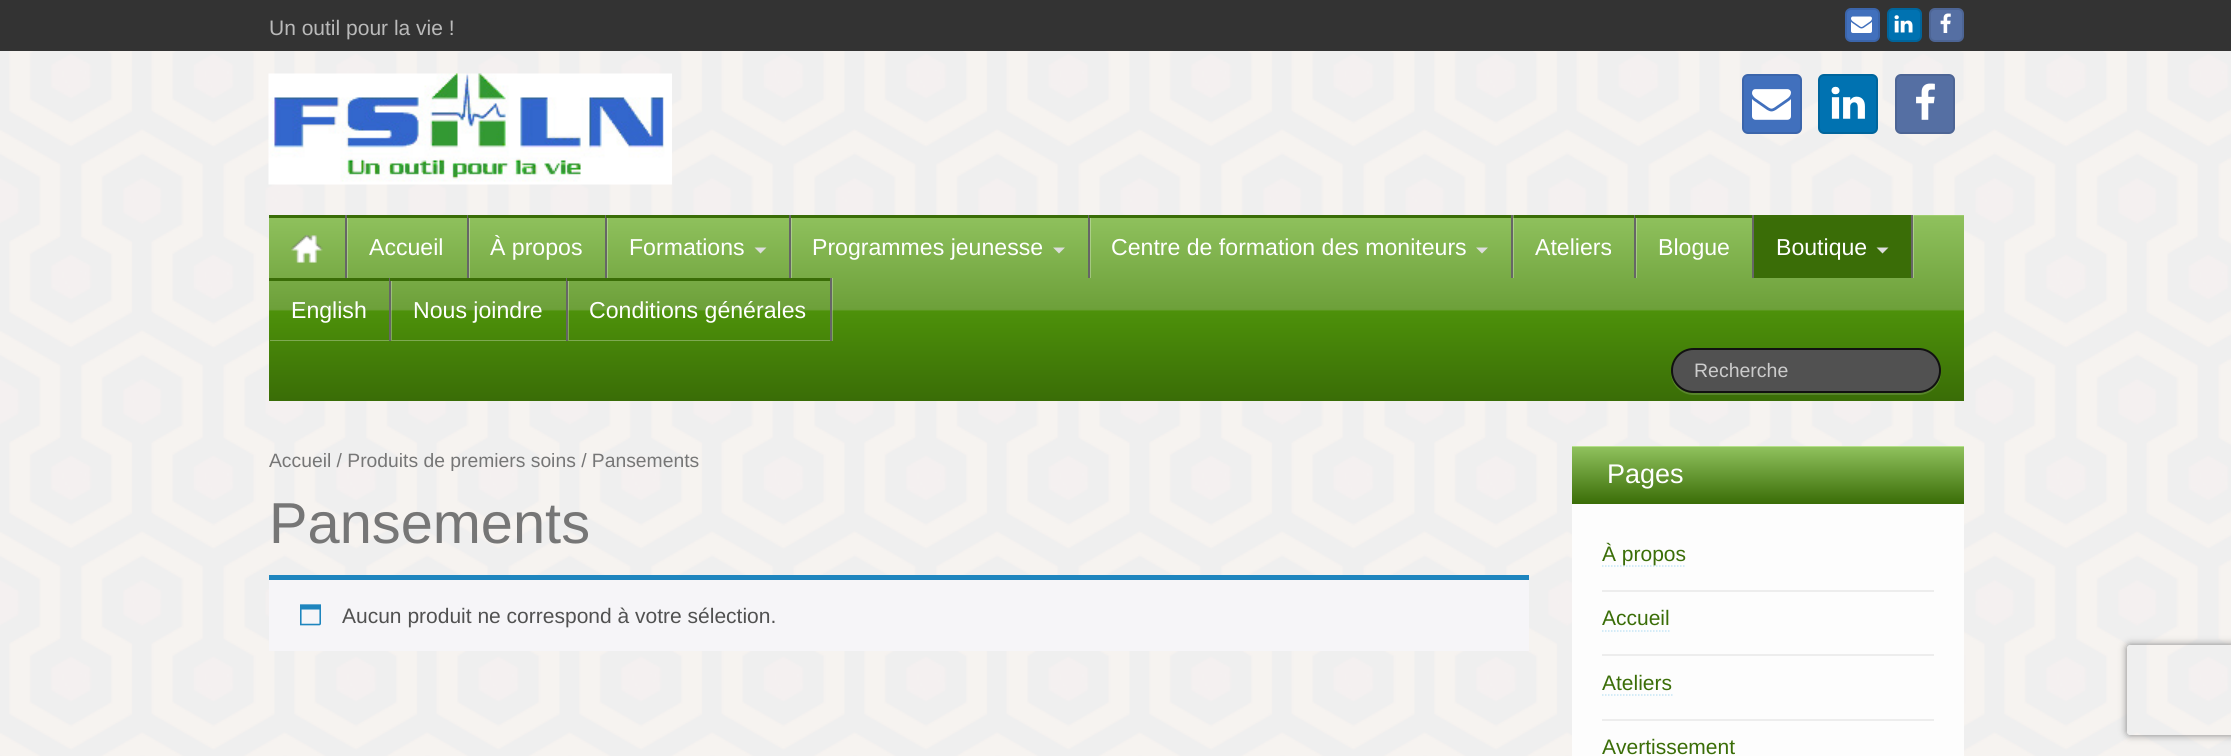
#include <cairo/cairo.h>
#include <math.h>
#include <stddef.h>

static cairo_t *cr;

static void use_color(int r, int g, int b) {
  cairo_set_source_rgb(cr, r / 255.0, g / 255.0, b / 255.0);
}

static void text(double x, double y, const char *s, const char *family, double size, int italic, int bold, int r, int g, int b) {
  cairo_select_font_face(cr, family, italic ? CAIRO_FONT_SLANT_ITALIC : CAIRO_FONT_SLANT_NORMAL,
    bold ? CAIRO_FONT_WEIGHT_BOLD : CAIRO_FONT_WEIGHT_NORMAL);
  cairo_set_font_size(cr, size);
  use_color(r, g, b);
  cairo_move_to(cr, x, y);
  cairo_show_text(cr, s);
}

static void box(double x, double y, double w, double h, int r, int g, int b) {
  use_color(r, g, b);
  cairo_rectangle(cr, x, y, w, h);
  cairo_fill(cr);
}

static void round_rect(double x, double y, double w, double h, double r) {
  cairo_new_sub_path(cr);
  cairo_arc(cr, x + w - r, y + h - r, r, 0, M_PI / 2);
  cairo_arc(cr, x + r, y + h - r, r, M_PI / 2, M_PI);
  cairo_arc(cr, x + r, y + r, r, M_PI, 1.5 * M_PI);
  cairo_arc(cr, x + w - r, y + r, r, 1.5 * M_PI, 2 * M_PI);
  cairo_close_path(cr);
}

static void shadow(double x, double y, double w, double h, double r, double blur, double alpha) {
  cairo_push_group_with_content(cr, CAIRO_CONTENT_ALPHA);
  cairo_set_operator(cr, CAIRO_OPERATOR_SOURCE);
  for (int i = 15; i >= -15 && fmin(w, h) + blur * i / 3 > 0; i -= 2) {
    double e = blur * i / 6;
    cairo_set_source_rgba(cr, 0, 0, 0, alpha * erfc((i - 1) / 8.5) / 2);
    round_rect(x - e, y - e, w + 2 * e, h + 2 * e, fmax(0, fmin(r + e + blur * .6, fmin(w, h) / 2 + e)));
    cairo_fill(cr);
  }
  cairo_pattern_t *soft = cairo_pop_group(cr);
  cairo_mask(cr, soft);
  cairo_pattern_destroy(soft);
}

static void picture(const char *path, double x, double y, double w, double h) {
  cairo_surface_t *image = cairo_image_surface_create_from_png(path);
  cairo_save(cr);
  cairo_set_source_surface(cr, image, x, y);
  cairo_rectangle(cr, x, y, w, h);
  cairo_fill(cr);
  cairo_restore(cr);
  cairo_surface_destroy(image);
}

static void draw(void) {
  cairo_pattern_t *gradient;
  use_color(247, 247, 247);
  cairo_paint(cr);
  picture("img_01.png", 0, 51, 2231, 705);
  box(0, 0, 2231, 51, 51, 51, 51);
  use_color(65, 112, 189);
  round_rect(1846, 9, 33, 32, 5);
  cairo_fill_preserve(cr);
  use_color(59, 101, 171);
  cairo_stroke(cr);
  picture("img_02.png", 1851, 16, 21, 17);
  use_color(0, 114, 177);
  round_rect(1888, 9, 33, 32, 5);
  cairo_fill_preserve(cr);
  use_color(0, 101, 156);
  cairo_stroke(cr);
  picture("img_03.png", 1894, 15, 19, 18);
  use_color(85, 111, 163);
  round_rect(1930, 9, 33, 32, 5);
  cairo_fill_preserve(cr);
  use_color(77, 101, 149);
  cairo_stroke(cr);
  picture("img_04.png", 1940, 13, 11, 20);
  picture("img_05.png", 268, 73, 404, 112);
  use_color(65, 112, 189);
  round_rect(1743, 75, 58, 58, 5);
  cairo_fill_preserve(cr);
  use_color(59, 101, 171);
  cairo_stroke(cr);
  picture("img_06.png", 1752, 89, 39, 31);
  use_color(0, 114, 177);
  round_rect(1819, 75, 58, 58, 5);
  cairo_fill_preserve(cr);
  use_color(0, 101, 156);
  cairo_stroke(cr);
  picture("img_07.png", 1831, 86, 34, 33);
  use_color(85, 111, 163);
  round_rect(1896, 75, 58, 58, 5);
  cairo_fill_preserve(cr);
  use_color(77, 101, 149);
  cairo_stroke(cr);
  picture("img_08.png", 1916, 83, 19, 37);
  gradient = cairo_pattern_create_linear(1116, 214, 1116, 401);
  cairo_pattern_add_color_stop_rgba(gradient, 0, 0.831, 0.976, 0.682, 1);
  cairo_pattern_add_color_stop_rgba(gradient, 0.01, 0.561, 0.757, 0.365, 1);
  cairo_pattern_add_color_stop_rgba(gradient, 0.51, 0.427, 0.627, 0.227, 1);
  cairo_pattern_add_color_stop_rgba(gradient, 0.52, 0.302, 0.569, 0.039, 1);
  cairo_pattern_add_color_stop_rgba(gradient, 1, 0.227, 0.427, 0.027, 1);
  cairo_set_source(cr, gradient);
  cairo_pattern_destroy(gradient);
  cairo_rectangle(cr, 269, 215, 1695, 186);
  cairo_fill(cr);
  cairo_set_source_rgba(cr, 1, 1, 1, 0.3);
  cairo_new_path(cr);
  cairo_move_to(cr, 270, 278);
  cairo_line_to(cr, 348, 278);
  cairo_line_to(cr, 348, 215);
  cairo_line_to(cr, 346, 215);
  cairo_line_to(cr, 346, 278);
  cairo_close_path(cr);
  cairo_fill(cr);
  box(345, 215, 2, 63, 102, 102, 102);
  box(269, 215, 76, 3, 58, 109, 7);
  picture("img_09.png", 291, 235, 32, 28);
  cairo_set_source_rgba(cr, 1, 1, 1, 0.3);
  cairo_new_path(cr);
  cairo_move_to(cr, 348, 278);
  cairo_line_to(cr, 470, 278);
  cairo_line_to(cr, 470, 215);
  cairo_line_to(cr, 468, 215);
  cairo_line_to(cr, 468, 278);
  cairo_close_path(cr);
  cairo_fill(cr);
  box(467, 215, 2, 63, 102, 102, 102);
  box(347, 215, 120, 3, 58, 109, 7);
  cairo_set_source_rgba(cr, 1, 1, 1, 0.3);
  cairo_new_path(cr);
  cairo_move_to(cr, 470, 278);
  cairo_line_to(cr, 608, 278);
  cairo_line_to(cr, 608, 215);
  cairo_line_to(cr, 606, 215);
  cairo_line_to(cr, 606, 278);
  cairo_close_path(cr);
  cairo_fill(cr);
  box(605, 215, 2, 63, 102, 102, 102);
  box(468, 215, 137, 3, 58, 109, 7);
  cairo_set_source_rgba(cr, 1, 1, 1, 0.3);
  cairo_new_path(cr);
  cairo_move_to(cr, 608, 278);
  cairo_line_to(cr, 792, 278);
  cairo_line_to(cr, 792, 215);
  cairo_line_to(cr, 790, 215);
  cairo_line_to(cr, 790, 278);
  cairo_close_path(cr);
  cairo_fill(cr);
  box(789, 215, 2, 63, 102, 102, 102);
  box(606, 215, 183, 3, 58, 109, 7);
  use_color(221, 221, 221);
  cairo_new_path(cr);
  cairo_move_to(cr, 754.5, 247.5);
  cairo_line_to(cr, 766.5, 247.5);
  cairo_line_to(cr, 760.5, 253.5);
  cairo_close_path(cr);
  cairo_fill(cr);
  cairo_set_source_rgba(cr, 1, 1, 1, 0.3);
  cairo_new_path(cr);
  cairo_move_to(cr, 792, 278);
  cairo_line_to(cr, 1091, 278);
  cairo_line_to(cr, 1091, 215);
  cairo_line_to(cr, 1089, 215);
  cairo_line_to(cr, 1089, 278);
  cairo_close_path(cr);
  cairo_fill(cr);
  box(1088, 215, 2, 63, 102, 102, 102);
  box(791, 215, 297, 3, 58, 109, 7);
  use_color(221, 221, 221);
  cairo_new_path(cr);
  cairo_move_to(cr, 1053, 247.5);
  cairo_line_to(cr, 1065, 247.5);
  cairo_line_to(cr, 1059, 253.5);
  cairo_close_path(cr);
  cairo_fill(cr);
  box(1512, 215, 122, 3, 58, 109, 7);
  cairo_set_source_rgba(cr, 1, 1, 1, 0.3);
  cairo_new_path(cr);
  cairo_move_to(cr, 1091, 278);
  cairo_line_to(cr, 1514, 278);
  cairo_line_to(cr, 1514, 215);
  cairo_line_to(cr, 1512, 215);
  cairo_line_to(cr, 1512, 278);
  cairo_close_path(cr);
  cairo_fill(cr);
  box(1511, 215, 2, 63, 102, 102, 102);
  box(1089, 215, 422, 3, 58, 109, 7);
  use_color(221, 221, 221);
  cairo_new_path(cr);
  cairo_move_to(cr, 1476, 247.5);
  cairo_line_to(cr, 1488, 247.5);
  cairo_line_to(cr, 1482, 253.5);
  cairo_close_path(cr);
  cairo_fill(cr);
  cairo_set_source_rgba(cr, 1, 1, 1, 0.3);
  cairo_new_path(cr);
  cairo_move_to(cr, 1514, 278);
  cairo_line_to(cr, 1637, 278);
  cairo_line_to(cr, 1637, 215);
  cairo_line_to(cr, 1635, 215);
  cairo_line_to(cr, 1635, 278);
  cairo_close_path(cr);
  cairo_fill(cr);
  box(1634, 215, 2, 63, 102, 102, 102);
  box(1752, 215, 2, 63, 102, 102, 102);
  box(1635, 215, 117, 3, 58, 109, 7);
  cairo_set_source_rgba(cr, 1, 1, 1, 0.3);
  cairo_new_path(cr);
  cairo_move_to(cr, 1755, 278);
  cairo_line_to(cr, 1914, 278);
  cairo_line_to(cr, 1914, 215);
  cairo_line_to(cr, 1912, 215);
  cairo_line_to(cr, 1912, 278);
  cairo_close_path(cr);
  cairo_fill(cr);
  box(1754, 215, 157, 63, 58, 109, 7);
  box(1911, 215, 2, 63, 102, 102, 102);
  use_color(221, 221, 221);
  cairo_new_path(cr);
  cairo_move_to(cr, 1876.5, 247.5);
  cairo_line_to(cr, 1888.5, 247.5);
  cairo_line_to(cr, 1882.5, 253.5);
  cairo_close_path(cr);
  cairo_fill(cr);
  cairo_set_source_rgba(cr, 1, 1, 1, 0.3);
  cairo_new_path(cr);
  cairo_move_to(cr, 270, 340);
  cairo_line_to(cr, 270, 341);
  cairo_line_to(cr, 392, 341);
  cairo_line_to(cr, 392, 278);
  cairo_line_to(cr, 390, 278);
  cairo_line_to(cr, 390, 340);
  cairo_close_path(cr);
  cairo_fill(cr);
  box(389, 278, 2, 63, 102, 102, 102);
  box(269, 278, 120, 3, 58, 109, 7);
  cairo_set_source_rgba(cr, 1, 1, 1, 0.3);
  cairo_new_path(cr);
  cairo_move_to(cr, 392, 340);
  cairo_line_to(cr, 392, 341);
  cairo_line_to(cr, 569, 341);
  cairo_line_to(cr, 569, 278);
  cairo_line_to(cr, 567, 278);
  cairo_line_to(cr, 567, 340);
  cairo_close_path(cr);
  cairo_fill(cr);
  box(566, 278, 2, 63, 102, 102, 102);
  box(390, 278, 176, 3, 58, 109, 7);
  cairo_set_source_rgba(cr, 1, 1, 1, 0.3);
  cairo_new_path(cr);
  cairo_move_to(cr, 569, 340);
  cairo_line_to(cr, 569, 341);
  cairo_line_to(cr, 833, 341);
  cairo_line_to(cr, 833, 278);
  cairo_line_to(cr, 831, 278);
  cairo_line_to(cr, 831, 340);
  cairo_close_path(cr);
  cairo_fill(cr);
  box(830, 278, 2, 63, 102, 102, 102);
  box(567, 278, 263, 3, 58, 109, 7);
  cairo_set_source_rgba(cr, 1, 1, 1, 0.15);
  cairo_new_path(cr);
  cairo_move_to(cr, 1671, 372);
  cairo_curve_to(cr, 1671, 385, 1681, 395, 1694, 395);
  cairo_line_to(cr, 1918, 395);
  cairo_curve_to(cr, 1931, 395, 1941, 385, 1941, 372);
  cairo_curve_to(cr, 1940, 383, 1931, 393, 1918, 393);
  cairo_line_to(cr, 1694, 393);
  cairo_curve_to(cr, 1681, 393, 1672, 383, 1671, 372);
  cairo_close_path(cr);
  cairo_fill(cr);
  use_color(81, 81, 81);
  round_rect(1672, 349, 268, 43, 21.5);
  cairo_fill_preserve(cr);
  use_color(17, 17, 17);
  cairo_stroke(cr);
  box(269, 580, 1260, 71, 246, 245, 248);
  box(269, 575, 1260, 5, 30, 133, 190);
  picture("img_10.png", 300, 604, 21, 22);
  box(1572, 504, 392, 252, 253, 253, 253);
  gradient = cairo_pattern_create_linear(1768, 446, 1768, 504);
  cairo_pattern_add_color_stop_rgba(gradient, 0, 0.831, 0.976, 0.682, 1);
  cairo_pattern_add_color_stop_rgba(gradient, 0.02, 0.561, 0.757, 0.365, 1);
  cairo_pattern_add_color_stop_rgba(gradient, 1, 0.227, 0.427, 0.027, 1);
  cairo_set_source(cr, gradient);
  cairo_pattern_destroy(gradient);
  cairo_rectangle(cr, 1572, 446, 392, 58);
  cairo_fill(cr);
  box(1602, 590, 332, 2, 237, 237, 237);
  cairo_new_path(cr);
  cairo_move_to(cr, 1602, 566);
  cairo_line_to(cr, 1686, 566);
  use_color(197, 229, 244);
  cairo_set_line_width(cr, 1.5);
  cairo_set_dash(cr, (double[]){1.5, 1.5}, 2, 0);
  cairo_stroke(cr);
  box(1602, 654, 332, 2, 237, 237, 237);
  cairo_new_path(cr);
  cairo_move_to(cr, 1602, 631);
  cairo_line_to(cr, 1669.5, 631);
  use_color(197, 229, 244);
  cairo_stroke(cr);
  box(1602, 719, 332, 2, 237, 237, 237);
  cairo_new_path(cr);
  cairo_move_to(cr, 1602, 695);
  cairo_line_to(cr, 1672.5, 695);
  use_color(197, 229, 244);
  cairo_stroke(cr);
  cairo_save(cr);
  cairo_set_fill_rule(cr, CAIRO_FILL_RULE_EVEN_ODD);
  cairo_new_path(cr);
  cairo_move_to(cr, 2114, 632);
  cairo_line_to(cr, 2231, 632);
  cairo_line_to(cr, 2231, 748);
  cairo_line_to(cr, 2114, 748);
  cairo_close_path(cr);
  cairo_move_to(cr, 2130, 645);
  cairo_line_to(cr, 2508, 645);
  cairo_curve_to(cr, 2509.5, 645, 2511, 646.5, 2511, 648);
  cairo_line_to(cr, 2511, 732);
  cairo_curve_to(cr, 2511, 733.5, 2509.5, 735, 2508, 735);
  cairo_line_to(cr, 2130, 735);
  cairo_curve_to(cr, 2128.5, 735, 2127, 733.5, 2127, 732);
  cairo_line_to(cr, 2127, 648);
  cairo_curve_to(cr, 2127, 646.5, 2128.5, 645, 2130, 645);
  cairo_close_path(cr);
  cairo_clip(cr);
  use_color(128, 128, 128);
  shadow(2127, 645, 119, 90, 3, 4, 1);
  cairo_restore(cr);
  text(269, 35, "Un outil pour la vie !", "Liberation Sans", 21, 0, 0, 186, 186, 186);
  text(369, 255, "Accueil", "Liberation Sans", 23.1, 0, 0, 255, 255, 255);
  text(490, 255, "À propos", "Liberation Sans", 23.1, 0, 0, 255, 255, 255);
  text(629, 255, "Formations", "Liberation Sans", 23.1, 0, 0, 255, 255, 255);
  text(812, 255, "Programmes jeunesse", "Liberation Sans", 23.1, 0, 0, 255, 255, 255);
  text(1111, 255, "Centre de formation des moniteurs", "Liberation Sans", 23.1, 0, 0, 255, 255, 255);
  text(1535, 255, "Ateliers", "Liberation Sans", 23.1, 0, 0, 255, 255, 255);
  text(1658, 255, "Blogue", "Liberation Sans", 23.1, 0, 0, 255, 255, 255);
  text(1776, 255, "Boutique", "Liberation Sans", 23.1, 0, 0, 255, 255, 255);
  text(291, 318, "English", "Liberation Sans", 23.1, 0, 0, 255, 255, 255);
  text(413, 318, "Nous joindre", "Liberation Sans", 23.1, 0, 0, 255, 255, 255);
  text(589, 318, "Conditions générales", "Liberation Sans", 23.1, 0, 0, 255, 255, 255);
  text(1694, 377, "Recherche", "Liberation Sans", 19.5, 0, 0, 204, 204, 204);
  text(269, 467, "Accueil / Produits de premiers soins / Pansements", "Liberation Sans", 19.3, 0, 0, 118, 118, 118);
  text(269, 543, "Pansements", "Liberation Sans", 57.75, 0, 0, 118, 118, 118);
  text(342, 623, "Aucun produit ne correspond à votre sélection.", "Liberation Sans", 21, 0, 0, 81, 81, 81);
  text(1607, 483, "Pages", "Liberation Sans", 27, 0, 0, 255, 255, 255);
  text(1602, 561, "À propos", "Liberation Sans", 21, 0, 0, 58, 109, 7);
  text(1602, 625, "Accueil", "Liberation Sans", 21, 0, 0, 58, 109, 7);
  text(1602, 690, "Ateliers", "Liberation Sans", 21, 0, 0, 58, 109, 7);
  text(1602, 754, "Avertissement", "Liberation Sans", 21, 0, 0, 58, 109, 7);
}

int main(void) {
  cairo_surface_t *surface = cairo_image_surface_create(CAIRO_FORMAT_RGB24, 2231, 756);
  cr = cairo_create(surface);
  cairo_font_options_t *options = cairo_font_options_create();
  cairo_font_options_set_hint_metrics(options, CAIRO_HINT_METRICS_OFF);
  cairo_font_options_set_hint_style(options, CAIRO_HINT_STYLE_NONE);
  cairo_set_font_options(cr, options);
  cairo_set_miter_limit(cr, 4);
  draw();
  cairo_surface_write_to_png(surface, "out.png");
  cairo_font_options_destroy(options);
  cairo_destroy(cr);
  cairo_surface_destroy(surface);
  return 0;
}
